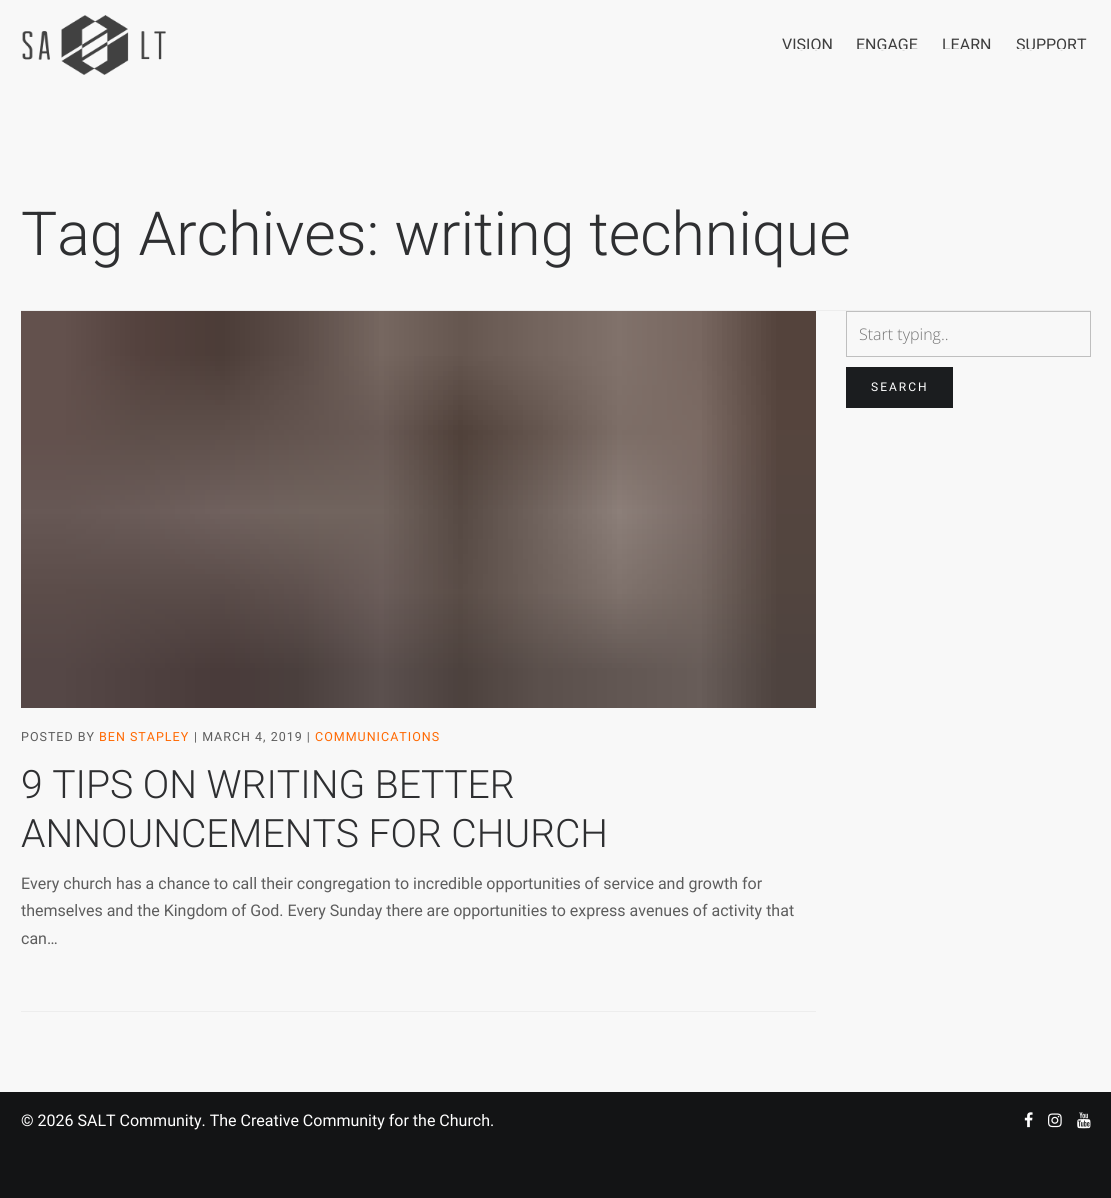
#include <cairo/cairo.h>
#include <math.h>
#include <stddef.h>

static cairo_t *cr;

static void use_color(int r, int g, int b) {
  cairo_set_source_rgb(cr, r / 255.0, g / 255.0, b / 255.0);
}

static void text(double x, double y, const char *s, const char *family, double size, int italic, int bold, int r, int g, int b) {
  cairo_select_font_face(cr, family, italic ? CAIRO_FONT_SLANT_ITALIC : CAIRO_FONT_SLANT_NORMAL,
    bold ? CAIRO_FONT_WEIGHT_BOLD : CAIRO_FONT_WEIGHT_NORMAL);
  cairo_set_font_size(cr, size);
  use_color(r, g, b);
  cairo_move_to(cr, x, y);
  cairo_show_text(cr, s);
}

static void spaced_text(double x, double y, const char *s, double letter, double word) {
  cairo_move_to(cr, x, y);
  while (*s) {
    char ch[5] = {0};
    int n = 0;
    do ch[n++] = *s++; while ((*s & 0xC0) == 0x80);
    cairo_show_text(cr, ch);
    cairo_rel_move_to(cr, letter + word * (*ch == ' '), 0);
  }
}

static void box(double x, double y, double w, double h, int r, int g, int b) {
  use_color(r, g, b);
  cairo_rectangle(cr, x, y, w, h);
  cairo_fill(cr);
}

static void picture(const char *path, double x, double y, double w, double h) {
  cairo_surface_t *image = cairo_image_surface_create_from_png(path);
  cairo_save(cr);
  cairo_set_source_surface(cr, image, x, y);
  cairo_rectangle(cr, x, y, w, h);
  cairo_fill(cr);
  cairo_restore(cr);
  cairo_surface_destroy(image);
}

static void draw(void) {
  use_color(19, 20, 21);
  cairo_paint(cr);
  box(0, 0, 1111, 1092, 248, 248, 248);
  picture("img_01.png", 22, 15, 144, 60);
  box(21, 310, 1070, 1, 237, 237, 237);
  cairo_rectangle(cr, 846.5, 311.5, 244, 45);
  use_color(191, 191, 191);
  cairo_set_line_width(cr, 1);
  cairo_stroke(cr);
  box(846, 367, 107, 41, 27, 29, 31);
  picture("img_02.png", 21, 311, 795, 397);
  box(21, 1011, 795, 1, 237, 237, 237);
  picture("img_03.png", 1024, 1112, 9, 16);
  picture("img_04.png", 1048, 1113, 14, 15);
  picture("img_05.png", 1077, 1112, 14, 17);
  text(782, 50, "VISION", "Roboto", 16, 0, 0, 62, 62, 62);
  box(782, 49, 50, 1, 248, 248, 248);
  text(856, 50, "ENGAGE", "Roboto", 16, 0, 0, 62, 62, 62);
  box(856, 49, 62, 1, 248, 248, 248);
  text(942, 50, "LEARN", "Roboto", 16, 0, 0, 62, 62, 62);
  box(942, 49, 50, 1, 248, 248, 248);
  text(1016, 50, "SUPPORT", "Roboto", 16, 0, 0, 62, 62, 62);
  box(1016, 49, 70, 1, 248, 248, 248);
  text(21, 255, "Tag Archives: writing technique", "Roboto Light", 60.75, 0, 0, 46, 47, 49);
  text(859, 340, "Start typing..", "Open Sans Light", 16, 0, 0, 117, 117, 117);
  cairo_select_font_face(cr, "Roboto", CAIRO_FONT_SLANT_NORMAL, CAIRO_FONT_WEIGHT_NORMAL);
  cairo_set_font_size(cr, 12);
  use_color(255, 255, 255);
  spaced_text(871, 391, "SEARCH", 2, 0);
  cairo_set_font_size(cr, 12.5);
  use_color(93, 93, 93);
  spaced_text(21, 741, "POSTED BY", 1, 0);
  use_color(255, 105, 2);
  spaced_text(99, 741, "BEN STAPLEY", 1, 0);
  use_color(93, 93, 93);
  spaced_text(194, 741, "| MARCH 4, 2019 |", 1, 0);
  use_color(255, 105, 2);
  spaced_text(315, 741, "COMMUNICATIONS", 1, 0);
  text(21, 798, "9 TIPS ON WRITING BETTER", "Roboto Light", 39.1, 0, 0, 46, 47, 49);
  text(21, 847, "ANNOUNCEMENTS FOR CHURCH", "Roboto Light", 39.1, 0, 0, 46, 47, 49);
  text(21, 889, "Every church has a chance to call their congregation to incredible opportunities of service and growth for", "Roboto", 16, 0, 0, 93, 93, 93);
  text(21, 916, "themselves and the Kingdom of God. Every Sunday there are opportunities to express avenues of activity that", "Roboto", 16, 0, 0, 93, 93, 93);
  text(21, 944, "can…", "Roboto", 16, 0, 0, 93, 93, 93);
  text(21, 1126, "© 2026 SALT Community. The Creative Community for the Church.", "Roboto", 16, 0, 0, 255, 255, 255);
}

int main(void) {
  cairo_surface_t *surface = cairo_image_surface_create(CAIRO_FORMAT_RGB24, 1111, 1198);
  cr = cairo_create(surface);
  cairo_font_options_t *options = cairo_font_options_create();
  cairo_font_options_set_hint_metrics(options, CAIRO_HINT_METRICS_OFF);
  cairo_font_options_set_hint_style(options, CAIRO_HINT_STYLE_NONE);
  cairo_set_font_options(cr, options);
  cairo_set_miter_limit(cr, 4);
  draw();
  cairo_surface_write_to_png(surface, "out.png");
  cairo_font_options_destroy(options);
  cairo_destroy(cr);
  cairo_surface_destroy(surface);
  return 0;
}
